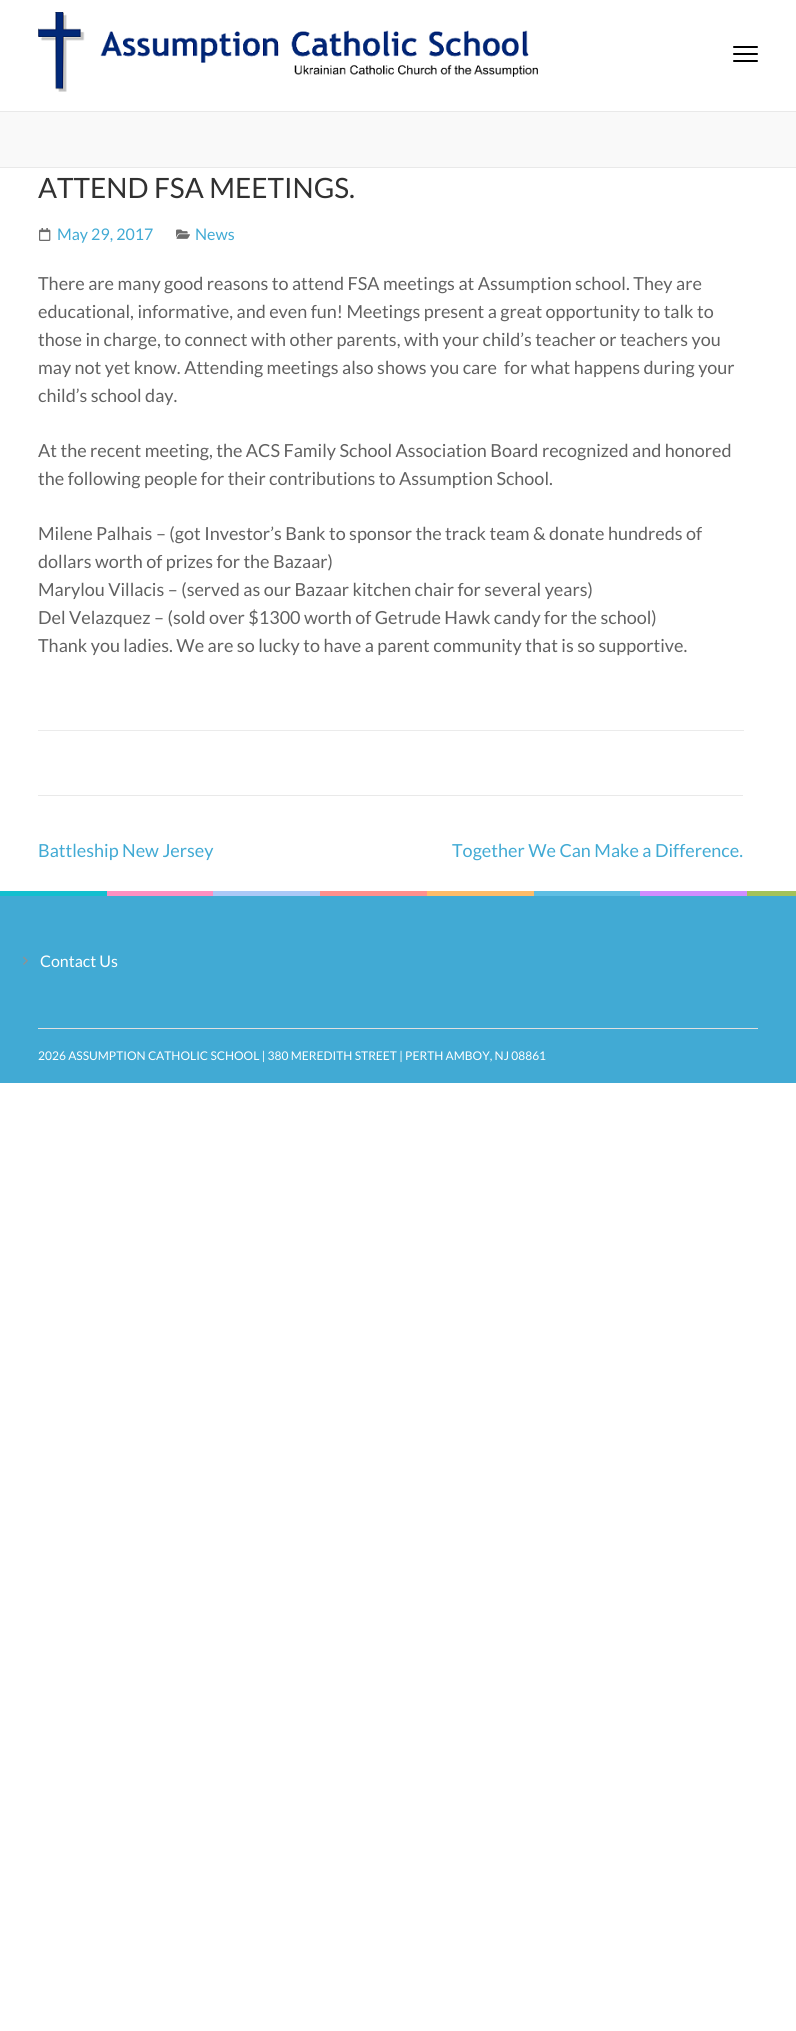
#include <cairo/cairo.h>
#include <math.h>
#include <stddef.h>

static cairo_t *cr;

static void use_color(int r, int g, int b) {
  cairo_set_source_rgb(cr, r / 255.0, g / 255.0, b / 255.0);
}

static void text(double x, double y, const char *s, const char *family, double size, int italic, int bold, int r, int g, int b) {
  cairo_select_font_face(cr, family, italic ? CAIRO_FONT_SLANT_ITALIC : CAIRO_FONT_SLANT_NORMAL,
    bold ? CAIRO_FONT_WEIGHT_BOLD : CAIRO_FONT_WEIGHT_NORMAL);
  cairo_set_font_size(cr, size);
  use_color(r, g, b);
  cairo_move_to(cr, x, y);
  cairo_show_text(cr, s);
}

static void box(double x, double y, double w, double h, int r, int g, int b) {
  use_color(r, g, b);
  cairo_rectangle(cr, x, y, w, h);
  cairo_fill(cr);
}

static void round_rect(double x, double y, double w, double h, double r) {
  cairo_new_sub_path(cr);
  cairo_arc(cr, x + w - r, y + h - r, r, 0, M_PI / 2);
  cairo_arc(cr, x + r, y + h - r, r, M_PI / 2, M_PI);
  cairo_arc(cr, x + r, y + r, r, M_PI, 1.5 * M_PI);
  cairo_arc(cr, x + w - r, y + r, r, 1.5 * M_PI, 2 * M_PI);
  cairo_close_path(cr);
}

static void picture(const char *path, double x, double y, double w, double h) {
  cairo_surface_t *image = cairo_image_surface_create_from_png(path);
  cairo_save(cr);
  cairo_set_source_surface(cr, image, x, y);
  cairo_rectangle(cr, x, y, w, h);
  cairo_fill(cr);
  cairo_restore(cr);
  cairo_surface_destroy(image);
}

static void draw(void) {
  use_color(255, 255, 255);
  cairo_paint(cr);
  picture("img_01.png", 38, 12, 500, 80);
  use_color(0, 0, 0);
  round_rect(733, 46, 25, 2, 1);
  cairo_fill(cr);
  round_rect(733, 53, 25, 2, 1);
  cairo_fill(cr);
  round_rect(733, 60, 25, 2, 1);
  cairo_fill(cr);
  box(0, 112, 796, 55, 249, 249, 249);
  box(0, 111, 796, 1, 233, 233, 233);
  box(0, 167, 796, 1, 233, 233, 233);
  box(38, 795, 705, 1, 233, 233, 233);
  picture("img_02.png", 39, 228, 12, 13);
  picture("img_03.png", 176, 229, 14, 10);
  box(38, 730, 706, 1, 235, 235, 235);
  box(0, 896, 796, 187, 65, 170, 212);
  picture("img_04.png", 0, 891, 796, 5);
  box(38, 1028, 720, 1, 224, 224, 224);
  picture("img_05.png", 23, 956, 5, 9);
  text(38, 198, "ATTEND FSA MEETINGS.", "Lato", 28, 0, 0, 49, 49, 49);
  text(57, 240, "May 29, 2017", "Lato", 16, 0, 0, 65, 170, 212);
  text(195, 240, "News", "Lato", 16, 0, 0, 65, 170, 212);
  text(38, 290, "There are many good reasons to attend FSA meetings at Assumption school. They are", "Lato", 18, 0, 0, 97, 97, 97);
  text(38, 318, "educational, informative, and even fun! Meetings present a great opportunity to talk to", "Lato", 18, 0, 0, 97, 97, 97);
  text(38, 346, "those in charge, to connect with other parents, with your child’s teacher or teachers you", "Lato", 18, 0, 0, 97, 97, 97);
  text(38, 374, "may not yet know. Attending meetings also shows you care  for what happens during your", "Lato", 18, 0, 0, 97, 97, 97);
  text(38, 402, "child’s school day.", "Lato", 18, 0, 0, 97, 97, 97);
  text(38, 457, "At the recent meeting, the ACS Family School Association Board recognized and honored", "Lato", 18, 0, 0, 97, 97, 97);
  text(38, 485, "the following people for their contributions to Assumption School.", "Lato", 18, 0, 0, 97, 97, 97);
  text(38, 540, "Milene Palhais – (got Investor’s Bank to sponsor the track team & donate hundreds of", "Lato", 18, 0, 0, 97, 97, 97);
  text(38, 568, "dollars worth of prizes for the Bazaar)", "Lato", 18, 0, 0, 97, 97, 97);
  text(38, 596, "Marylou Villacis – (served as our Bazaar kitchen chair for several years)", "Lato", 18, 0, 0, 97, 97, 97);
  text(38, 624, "Del Velazquez – (sold over $1300 worth of Getrude Hawk candy for the school)", "Lato", 18, 0, 0, 97, 97, 97);
  text(38, 652, "Thank you ladies. We are so lucky to have a parent community that is so supportive.", "Lato", 18, 0, 0, 97, 97, 97);
  text(38, 857, "Battleship New Jersey", "Lato", 18, 0, 0, 65, 170, 212);
  text(452, 857, "Together We Can Make a Difference.", "Lato", 18, 0, 0, 65, 170, 212);
  text(40, 967, "Contact Us", "Lato", 16, 0, 0, 255, 255, 255);
  text(38, 1060, "2026 ASSUMPTION CATHOLIC SCHOOL | 380 MEREDITH STREET | PERTH AMBOY, NJ 08861", "Lato", 12, 0, 0, 255, 255, 255);
}

int main(void) {
  cairo_surface_t *surface = cairo_image_surface_create(CAIRO_FORMAT_RGB24, 796, 2031);
  cr = cairo_create(surface);
  cairo_font_options_t *options = cairo_font_options_create();
  cairo_font_options_set_hint_metrics(options, CAIRO_HINT_METRICS_OFF);
  cairo_font_options_set_hint_style(options, CAIRO_HINT_STYLE_NONE);
  cairo_set_font_options(cr, options);
  cairo_set_miter_limit(cr, 4);
  draw();
  cairo_surface_write_to_png(surface, "out.png");
  cairo_font_options_destroy(options);
  cairo_destroy(cr);
  cairo_surface_destroy(surface);
  return 0;
}
